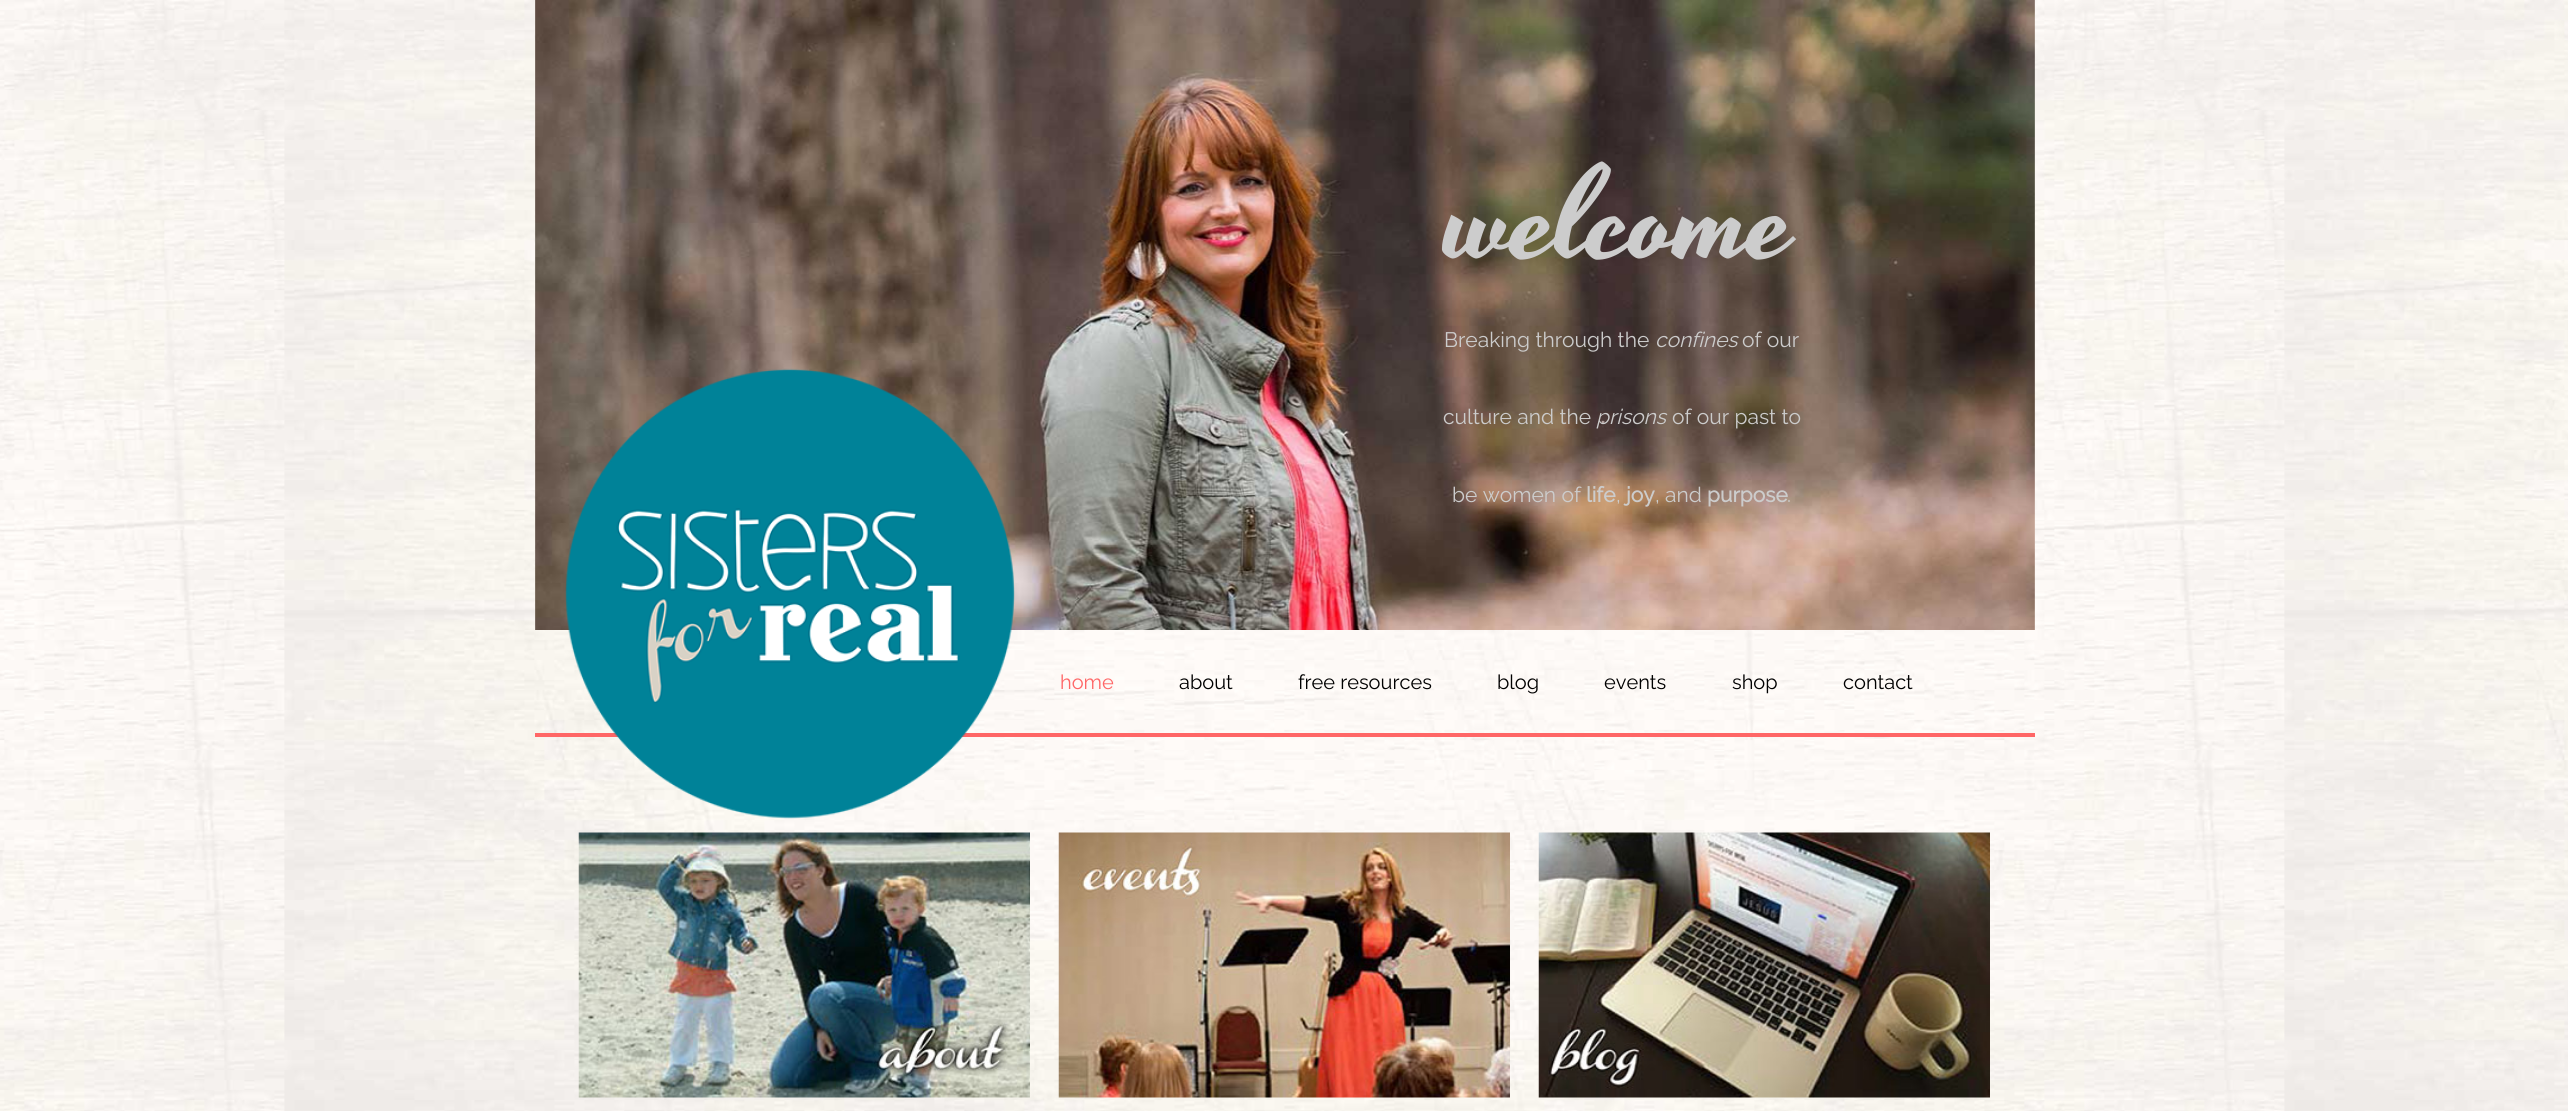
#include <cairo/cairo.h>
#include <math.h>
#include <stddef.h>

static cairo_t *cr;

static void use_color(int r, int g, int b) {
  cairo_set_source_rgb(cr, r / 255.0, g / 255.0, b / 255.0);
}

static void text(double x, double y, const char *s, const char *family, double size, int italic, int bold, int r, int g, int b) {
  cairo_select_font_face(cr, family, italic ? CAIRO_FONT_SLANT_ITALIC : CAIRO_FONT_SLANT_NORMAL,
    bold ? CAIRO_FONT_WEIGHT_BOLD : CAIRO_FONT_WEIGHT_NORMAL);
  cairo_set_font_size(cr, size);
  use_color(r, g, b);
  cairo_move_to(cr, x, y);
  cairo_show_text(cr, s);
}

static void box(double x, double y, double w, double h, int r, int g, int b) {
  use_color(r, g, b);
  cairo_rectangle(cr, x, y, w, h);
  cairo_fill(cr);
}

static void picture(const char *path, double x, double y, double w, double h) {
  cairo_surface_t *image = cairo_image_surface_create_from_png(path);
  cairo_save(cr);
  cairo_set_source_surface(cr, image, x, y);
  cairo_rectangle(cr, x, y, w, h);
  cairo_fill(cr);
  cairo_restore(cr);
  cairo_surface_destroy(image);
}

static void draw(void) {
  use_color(255, 255, 255);
  cairo_paint(cr);
  picture("img_01.png", 0, 0, 2568, 1111);
  picture("img_02.png", 535, 0, 1500, 630);
  box(535, 733, 1500, 4, 255, 102, 102);
  picture("img_03.png", 565, 368, 450, 451);
  picture("img_04.png", 578, 832, 452, 266);
  picture("img_05.png", 1058, 832, 452, 266);
  picture("img_06.png", 1538, 832, 452, 266);
  text(1448, 255, "welcome", "Yesteryear", 132, 0, 0, 204, 204, 204);
  text(1444, 347, "Breaking through the", "Raleway Thin", 21, 0, 0, 204, 204, 204);
  text(1655, 347, "confines", "Raleway Thin", 21, 1, 0, 204, 204, 204);
  text(1742, 347, "of our", "Raleway Thin", 21, 0, 0, 204, 204, 204);
  text(1443, 424, "culture and the", "Raleway Thin", 21, 0, 0, 204, 204, 204);
  text(1596, 424, "prisons", "Raleway Thin", 21, 1, 0, 204, 204, 204);
  text(1672, 424, "of our past to", "Raleway Thin", 21, 0, 0, 204, 204, 204);
  text(1452, 502, "be women of", "Raleway Thin", 21, 0, 0, 204, 204, 204);
  text(1586, 502, "life", "Raleway", 21, 0, 1, 204, 204, 204);
  text(1616, 502, ",", "Raleway Thin", 21, 0, 0, 204, 204, 204);
  text(1626, 502, "joy", "Raleway", 21, 0, 1, 204, 204, 204);
  text(1655, 502, ", and", "Raleway Thin", 21, 0, 0, 204, 204, 204);
  text(1707, 502, "purpose", "Raleway", 21, 0, 1, 204, 204, 204);
  text(1787, 502, ".", "Raleway Thin", 21, 0, 0, 204, 204, 204);
  text(1060, 689, "home", "Raleway Thin", 20, 0, 0, 255, 102, 102);
  text(1179, 689, "about", "Raleway Thin", 20, 0, 0, 0, 0, 0);
  text(1298, 689, "free resources", "Raleway Thin", 20, 0, 0, 0, 0, 0);
  text(1497, 689, "blog", "Raleway Thin", 20, 0, 0, 0, 0, 0);
  text(1604, 689, "events", "Raleway Thin", 20, 0, 0, 0, 0, 0);
  text(1732, 689, "shop", "Raleway Thin", 20, 0, 0, 0, 0, 0);
  text(1843, 689, "contact", "Raleway Thin", 20, 0, 0, 0, 0, 0);
}

int main(void) {
  cairo_surface_t *surface = cairo_image_surface_create(CAIRO_FORMAT_RGB24, 2568, 1111);
  cr = cairo_create(surface);
  cairo_font_options_t *options = cairo_font_options_create();
  cairo_font_options_set_hint_metrics(options, CAIRO_HINT_METRICS_OFF);
  cairo_font_options_set_hint_style(options, CAIRO_HINT_STYLE_NONE);
  cairo_set_font_options(cr, options);
  cairo_set_miter_limit(cr, 4);
  draw();
  cairo_surface_write_to_png(surface, "out.png");
  cairo_font_options_destroy(options);
  cairo_destroy(cr);
  cairo_surface_destroy(surface);
  return 0;
}
